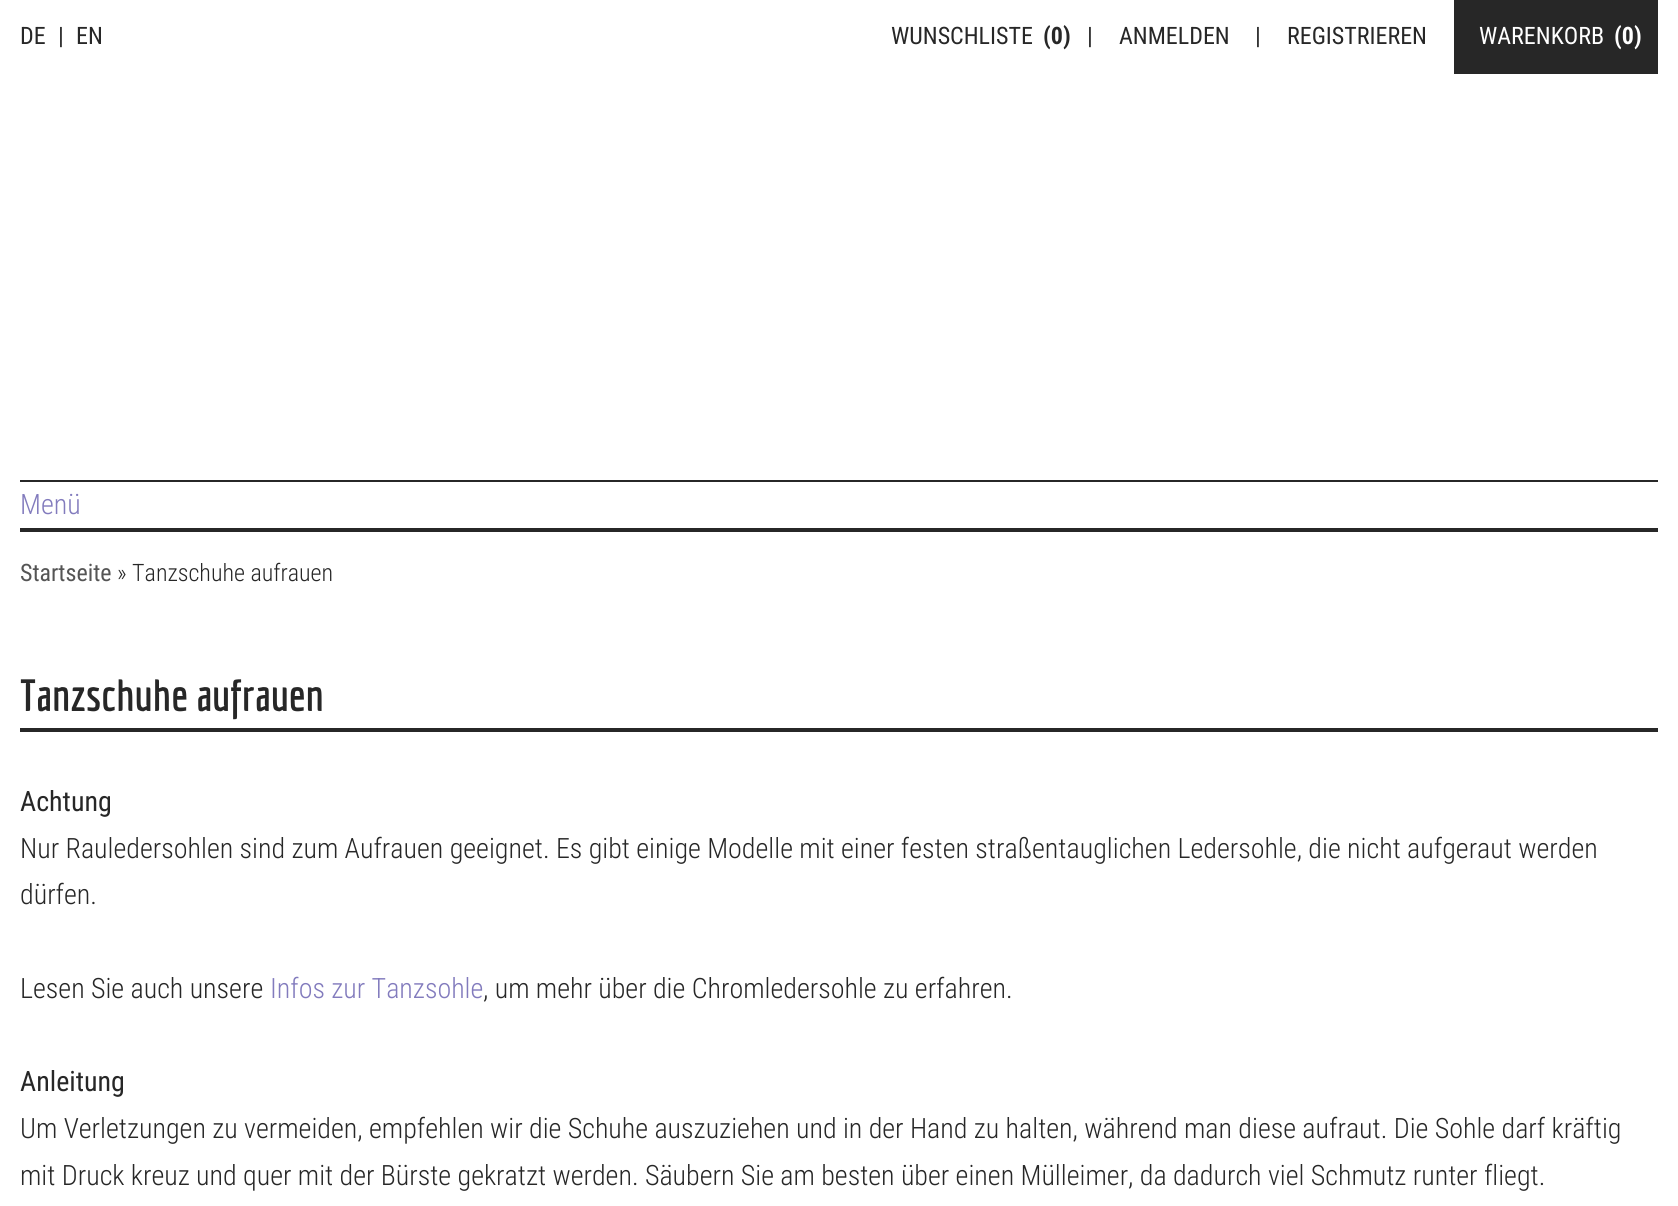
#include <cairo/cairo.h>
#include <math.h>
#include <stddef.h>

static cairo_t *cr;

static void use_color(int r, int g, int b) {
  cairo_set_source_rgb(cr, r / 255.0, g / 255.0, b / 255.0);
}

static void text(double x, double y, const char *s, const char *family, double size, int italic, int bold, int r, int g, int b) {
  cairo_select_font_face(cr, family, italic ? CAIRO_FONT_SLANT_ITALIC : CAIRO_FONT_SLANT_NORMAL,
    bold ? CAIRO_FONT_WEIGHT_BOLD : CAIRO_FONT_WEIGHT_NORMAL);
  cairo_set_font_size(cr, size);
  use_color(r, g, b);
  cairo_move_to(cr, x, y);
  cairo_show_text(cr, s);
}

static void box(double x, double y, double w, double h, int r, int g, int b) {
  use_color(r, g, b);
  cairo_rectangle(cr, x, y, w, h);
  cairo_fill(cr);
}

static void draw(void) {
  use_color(255, 255, 255);
  cairo_paint(cr);
  box(1454, 0, 204, 74, 39, 39, 39);
  box(20, 480, 1638, 2, 39, 39, 39);
  box(20, 528, 1638, 4, 39, 39, 39);
  box(20, 728, 1638, 4, 39, 39, 39);
  text(20, 44, "DE", "Roboto Condensed", 24, 0, 0, 39, 39, 39);
  text(58, 44, "|", "Roboto Condensed", 24, 0, 0, 39, 39, 39);
  text(76, 44, "EN", "Roboto Condensed", 24, 0, 0, 39, 39, 39);
  text(891, 44, "WUNSCHLISTE", "Roboto Condensed", 24, 0, 0, 39, 39, 39);
  text(1043, 44, "(0)", "Roboto Condensed", 24, 0, 1, 39, 39, 39);
  text(1087, 44, "|", "Roboto Condensed", 24, 0, 0, 39, 39, 39);
  text(1119, 44, "ANMELDEN", "Roboto Condensed", 24, 0, 0, 39, 39, 39);
  text(1255, 44, "|", "Roboto Condensed", 24, 0, 0, 39, 39, 39);
  text(1287, 44, "REGISTRIEREN", "Roboto Condensed", 24, 0, 0, 39, 39, 39);
  text(1479, 44, "WARENKORB", "Roboto Condensed", 24, 0, 0, 255, 255, 255);
  text(1614, 44, "(0)", "Roboto Condensed", 24, 0, 1, 255, 255, 255);
  text(20, 514, "Menü", "Roboto Condensed Light", 28, 0, 0, 130, 123, 189);
  text(20, 581, "Startseite", "Roboto Condensed", 24, 0, 0, 85, 85, 85);
  text(117, 581, "» Tanzschuhe aufrauen", "Roboto Condensed Light", 24, 0, 0, 39, 39, 39);
  text(20, 711, "Tanzschuhe aufrauen", "Economica", 44, 0, 1, 39, 39, 39);
  text(20, 811, "Achtung", "Roboto Condensed", 28, 0, 0, 39, 39, 39);
  text(20, 858, "Nur Rauledersohlen sind zum Aufrauen geeignet. Es gibt einige Modelle mit einer festen straßentauglichen Ledersohle, die nicht aufgeraut werden", "Roboto Condensed Light", 28, 0, 0, 39, 39, 39);
  text(20, 904, "dürfen.", "Roboto Condensed Light", 28, 0, 0, 39, 39, 39);
  text(20, 998, "Lesen Sie auch unsere", "Roboto Condensed Light", 28, 0, 0, 39, 39, 39);
  text(270, 998, "Infos zur Tanzsohle", "Roboto Condensed Light", 28, 0, 0, 130, 123, 189);
  text(483, 998, ", um mehr über die Chromledersohle zu erfahren.", "Roboto Condensed Light", 28, 0, 0, 39, 39, 39);
  text(20, 1091, "Anleitung", "Roboto Condensed", 28, 0, 0, 39, 39, 39);
  text(20, 1138, "Um Verletzungen zu vermeiden, empfehlen wir die Schuhe auszuziehen und in der Hand zu halten, während man diese aufraut. Die Sohle darf kräftig", "Roboto Condensed Light", 28, 0, 0, 39, 39, 39);
  text(20, 1185, "mit Druck kreuz und quer mit der Bürste gekratzt werden. Säubern Sie am besten über einen Mülleimer, da dadurch viel Schmutz runter fliegt.", "Roboto Condensed Light", 28, 0, 0, 39, 39, 39);
}

int main(void) {
  cairo_surface_t *surface = cairo_image_surface_create(CAIRO_FORMAT_RGB24, 1678, 1206);
  cr = cairo_create(surface);
  cairo_font_options_t *options = cairo_font_options_create();
  cairo_font_options_set_hint_metrics(options, CAIRO_HINT_METRICS_OFF);
  cairo_font_options_set_hint_style(options, CAIRO_HINT_STYLE_NONE);
  cairo_set_font_options(cr, options);
  cairo_set_miter_limit(cr, 4);
  draw();
  cairo_surface_write_to_png(surface, "out.png");
  cairo_font_options_destroy(options);
  cairo_destroy(cr);
  cairo_surface_destroy(surface);
  return 0;
}
